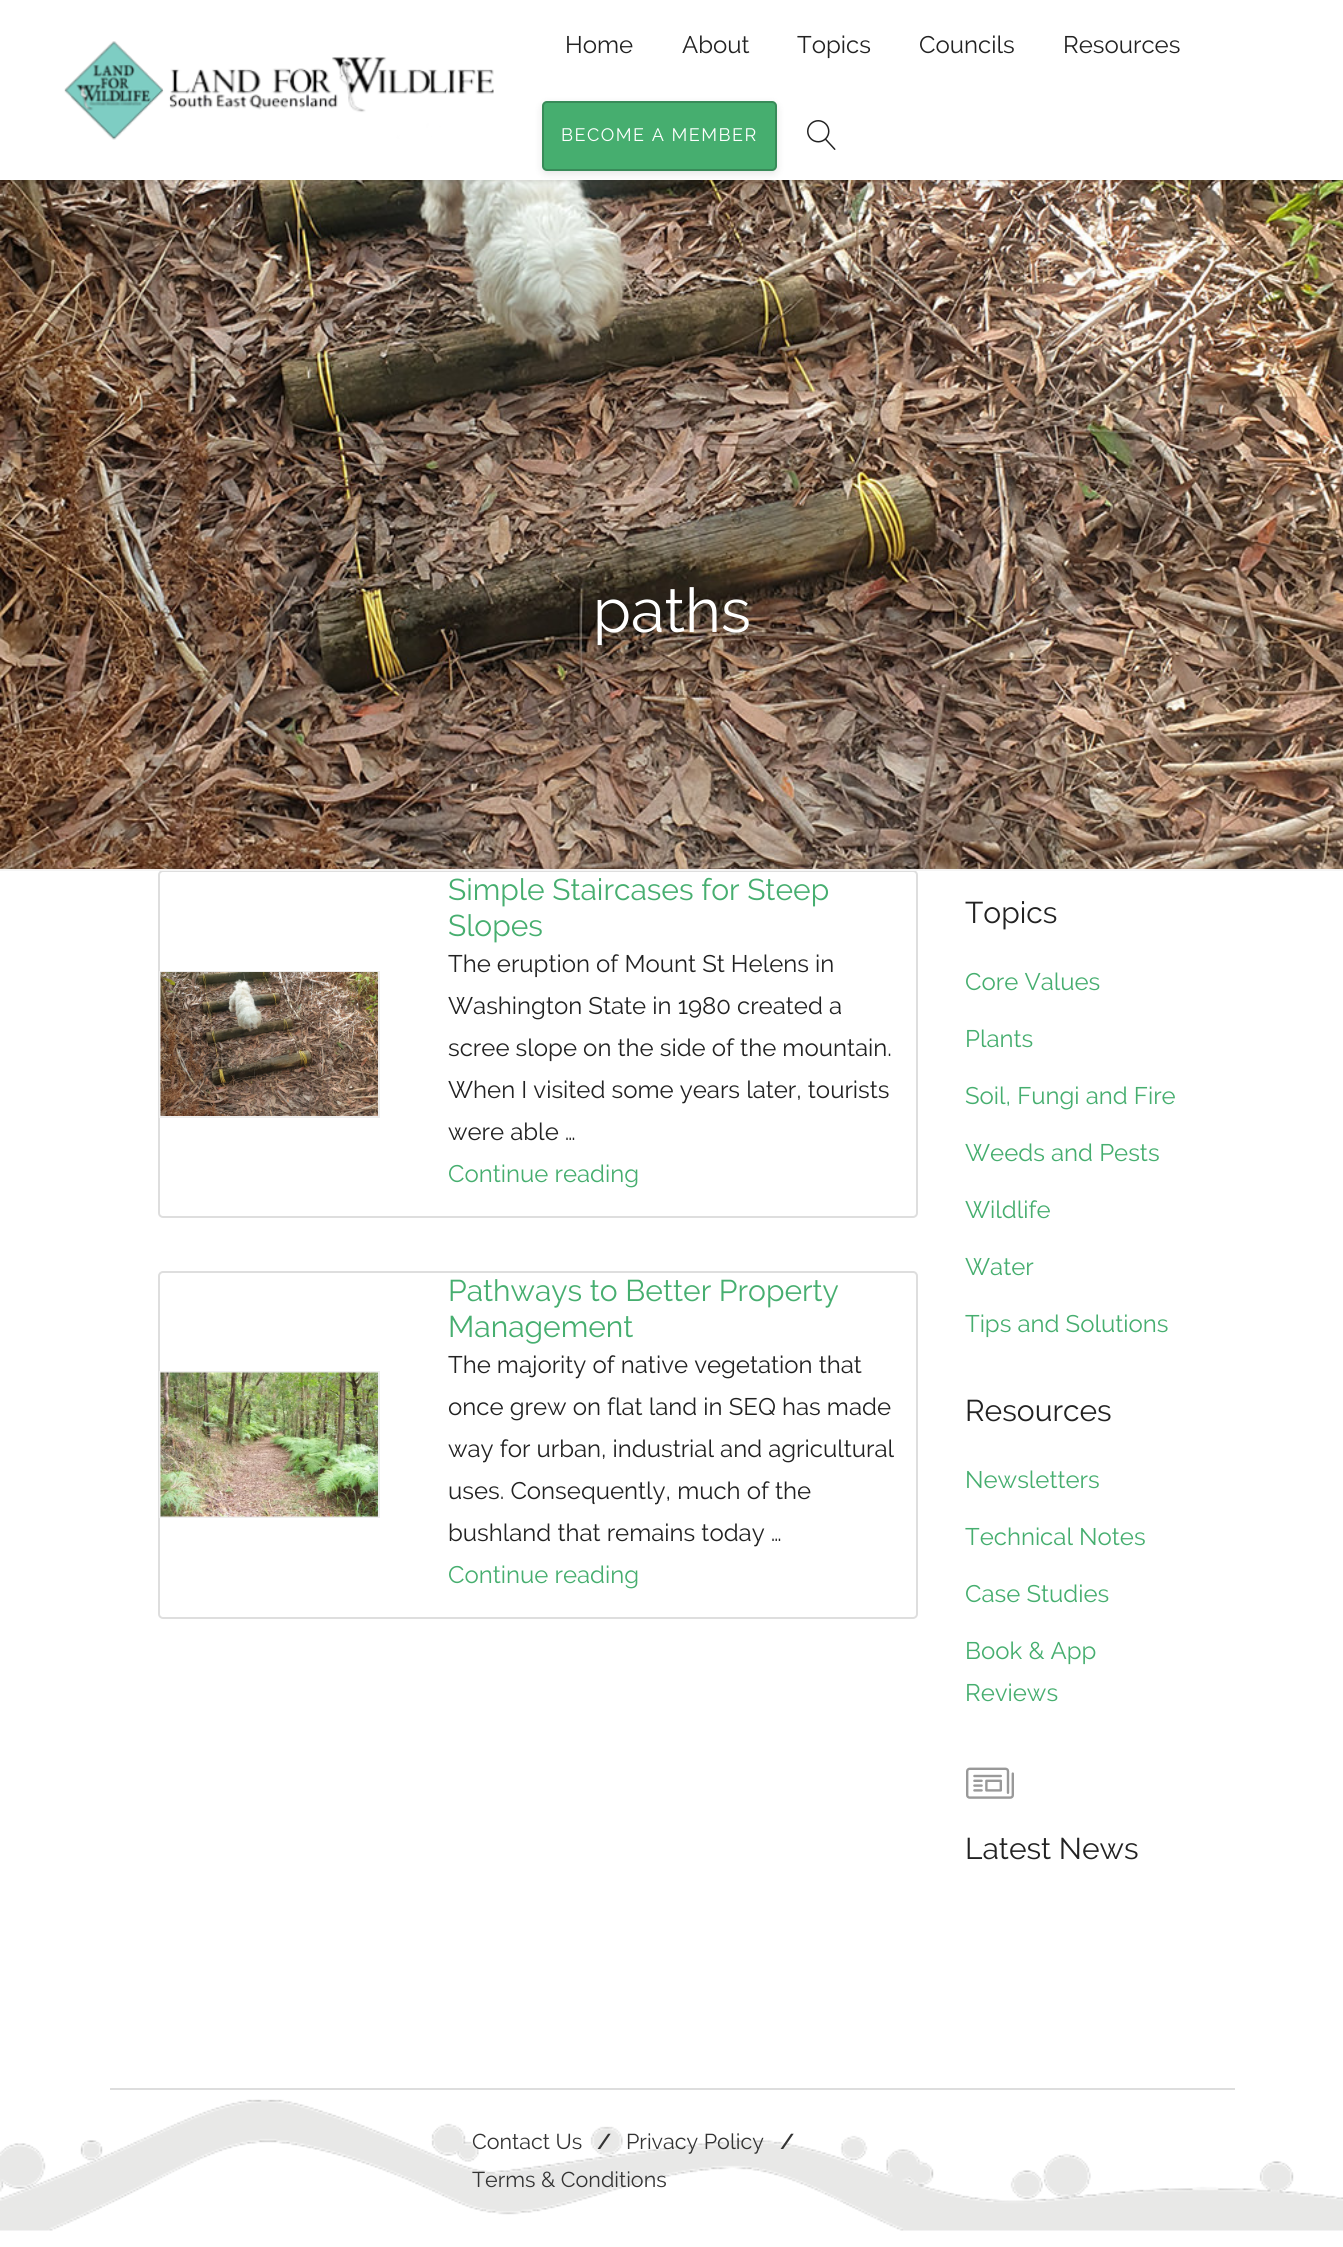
#include <cairo/cairo.h>
#include <math.h>
#include <stddef.h>

static cairo_t *cr;

static void use_color(int r, int g, int b) {
  cairo_set_source_rgb(cr, r / 255.0, g / 255.0, b / 255.0);
}

static void text(double x, double y, const char *s, const char *family, double size, int italic, int bold, int r, int g, int b) {
  cairo_select_font_face(cr, family, italic ? CAIRO_FONT_SLANT_ITALIC : CAIRO_FONT_SLANT_NORMAL,
    bold ? CAIRO_FONT_WEIGHT_BOLD : CAIRO_FONT_WEIGHT_NORMAL);
  cairo_set_font_size(cr, size);
  use_color(r, g, b);
  cairo_move_to(cr, x, y);
  cairo_show_text(cr, s);
}

static void spaced_text(double x, double y, const char *s, double letter, double word) {
  cairo_move_to(cr, x, y);
  while (*s) {
    char ch[5] = {0};
    int n = 0;
    do ch[n++] = *s++; while ((*s & 0xC0) == 0x80);
    cairo_show_text(cr, ch);
    cairo_rel_move_to(cr, letter + word * (*ch == ' '), 0);
  }
}

static void box(double x, double y, double w, double h, int r, int g, int b) {
  use_color(r, g, b);
  cairo_rectangle(cr, x, y, w, h);
  cairo_fill(cr);
}

static void round_rect(double x, double y, double w, double h, double r) {
  cairo_new_sub_path(cr);
  cairo_arc(cr, x + w - r, y + h - r, r, 0, M_PI / 2);
  cairo_arc(cr, x + r, y + h - r, r, M_PI / 2, M_PI);
  cairo_arc(cr, x + r, y + r, r, M_PI, 1.5 * M_PI);
  cairo_arc(cr, x + w - r, y + r, r, 1.5 * M_PI, 2 * M_PI);
  cairo_close_path(cr);
}

static void shadow(double x, double y, double w, double h, double r, double blur, double alpha) {
  cairo_push_group_with_content(cr, CAIRO_CONTENT_ALPHA);
  cairo_set_operator(cr, CAIRO_OPERATOR_SOURCE);
  for (int i = 15; i >= -15 && fmin(w, h) + blur * i / 3 > 0; i -= 2) {
    double e = blur * i / 6;
    cairo_set_source_rgba(cr, 0, 0, 0, alpha * erfc((i - 1) / 8.5) / 2);
    round_rect(x - e, y - e, w + 2 * e, h + 2 * e, fmax(0, fmin(r + e + blur * .6, fmin(w, h) / 2 + e)));
    cairo_fill(cr);
  }
  cairo_pattern_t *soft = cairo_pop_group(cr);
  cairo_mask(cr, soft);
  cairo_pattern_destroy(soft);
}

static void picture(const char *path, double x, double y, double w, double h) {
  cairo_surface_t *image = cairo_image_surface_create_from_png(path);
  cairo_save(cr);
  cairo_set_source_surface(cr, image, x, y);
  cairo_rectangle(cr, x, y, w, h);
  cairo_fill(cr);
  cairo_restore(cr);
  cairo_surface_destroy(image);
}

static void draw(void) {
  use_color(255, 255, 255);
  cairo_paint(cr);
  picture("img_03.png", 0, 180, 1343, 689);
  use_color(0, 0, 0);
  shadow(0, 0, 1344, 180, 0, 3, 0.2);
  box(0, 0, 1343, 180, 255, 255, 255);
  picture("img_01.png", 64, 41, 430, 99);
  use_color(0, 0, 0);
  shadow(542, 104, 235, 70, 5, 4, 0.1);
  use_color(70, 174, 111);
  round_rect(542, 101, 235, 70, 5);
  cairo_fill(cr);
  round_rect(543, 102, 233, 68, 4);
  cairo_set_source_rgba(cr, 0, 0, 0, 0.2);
  cairo_stroke(cr);
  picture("img_02.png", 807, 120, 29, 30);
  round_rect(159, 871, 758, 346, 4);
  use_color(222, 222, 222);
  cairo_stroke(cr);
  box(0, 869, 1343, 2, 245, 245, 245);
  cairo_rectangle(cr, 160, 972, 219, 145);
  use_color(238, 238, 238);
  cairo_stroke(cr);
  picture("img_04.png", 160, 972, 218, 144);
  round_rect(159, 1272, 758, 346, 4);
  use_color(222, 222, 222);
  cairo_stroke(cr);
  cairo_rectangle(cr, 160, 1372, 219, 145);
  use_color(238, 238, 238);
  cairo_stroke(cr);
  picture("img_05.png", 160, 1372, 218, 145);
  picture("img_06.png", 966, 1767, 48, 32);
  picture("img_07.png", 0, 2099, 1343, 132);
  box(110, 2088, 1125, 2, 221, 221, 221);
  text(565, 53, "Home", "Raleway", 24, 0, 0, 34, 34, 34);
  text(682, 53, "About", "Raleway", 24, 0, 0, 34, 34, 34);
  text(797, 53, "Topics", "Raleway", 24, 0, 0, 34, 34, 34);
  text(919, 53, "Councils", "Raleway", 24, 0, 0, 34, 34, 34);
  text(1063, 53, "Resources", "Raleway", 24, 0, 0, 34, 34, 34);
  cairo_set_font_size(cr, 18);
  use_color(255, 255, 255);
  spaced_text(561, 141, "BECOME A MEMBER", 1.5, 0);
  text(593, 632, "paths", "Raleway", 61.5, 0, 0, 255, 255, 255);
  text(448, 900, "Simple Staircases for Steep", "Raleway", 30, 0, 0, 70, 174, 111);
  text(448, 936, "Slopes", "Raleway", 30, 0, 0, 70, 174, 111);
  text(448, 972, "The eruption of Mount St Helens in", "Raleway", 24, 0, 0, 34, 34, 34);
  text(448, 1014, "Washington State in 1980 created a", "Raleway", 24, 0, 0, 34, 34, 34);
  text(448, 1056, "scree slope on the side of the mountain.", "Raleway", 24, 0, 0, 34, 34, 34);
  text(448, 1098, "When I visited some years later, tourists", "Raleway", 24, 0, 0, 34, 34, 34);
  text(448, 1140, "were able …", "Raleway", 24, 0, 0, 34, 34, 34);
  text(448, 1182, "Continue reading", "Raleway", 24, 0, 0, 70, 174, 111);
  text(448, 1301, "Pathways to Better Property", "Raleway", 30, 0, 0, 70, 174, 111);
  text(448, 1337, "Management", "Raleway", 30, 0, 0, 70, 174, 111);
  text(448, 1373, "The majority of native vegetation that", "Raleway", 24, 0, 0, 34, 34, 34);
  text(448, 1415, "once grew on flat land in SEQ has made", "Raleway", 24, 0, 0, 34, 34, 34);
  text(448, 1457, "way for urban, industrial and agricultural", "Raleway", 24, 0, 0, 34, 34, 34);
  text(448, 1499, "uses. Consequently, much of the", "Raleway", 24, 0, 0, 34, 34, 34);
  text(448, 1541, "bushland that remains today …", "Raleway", 24, 0, 0, 34, 34, 34);
  text(448, 1583, "Continue reading", "Raleway", 24, 0, 0, 70, 174, 111);
  text(965, 923, "Topics", "Raleway", 30, 0, 0, 34, 34, 34);
  text(965, 990, "Core Values", "Raleway", 24, 0, 0, 70, 174, 111);
  text(965, 1047, "Plants", "Raleway", 24, 0, 0, 70, 174, 111);
  text(965, 1104, "Soil, Fungi and Fire", "Raleway", 24, 0, 0, 70, 174, 111);
  text(965, 1161, "Weeds and Pests", "Raleway", 24, 0, 0, 70, 174, 111);
  text(965, 1218, "Wildlife", "Raleway", 24, 0, 0, 70, 174, 111);
  text(965, 1275, "Water", "Raleway", 24, 0, 0, 70, 174, 111);
  text(965, 1332, "Tips and Solutions", "Raleway", 24, 0, 0, 70, 174, 111);
  text(965, 1421, "Resources", "Raleway", 30, 0, 0, 34, 34, 34);
  text(965, 1488, "Newsletters", "Raleway", 24, 0, 0, 70, 174, 111);
  text(965, 1545, "Technical Notes", "Raleway", 24, 0, 0, 70, 174, 111);
  text(965, 1602, "Case Studies", "Raleway", 24, 0, 0, 70, 174, 111);
  text(965, 1659, "Book & App", "Raleway", 24, 0, 0, 70, 174, 111);
  text(965, 1701, "Reviews", "Raleway", 24, 0, 0, 70, 174, 111);
  text(965, 1859, "Latest News", "Raleway", 30, 0, 0, 34, 34, 34);
  text(472, 2149, "Contact Us", "Raleway", 21.5, 0, 0, 51, 51, 51);
  text(597, 2149, "/", "Raleway SemiBold", 21.5, 0, 0, 51, 51, 51);
  text(626, 2149, "Privacy Policy", "Raleway", 21.5, 0, 0, 51, 51, 51);
  text(780, 2149, "/", "Raleway SemiBold", 21.5, 0, 0, 51, 51, 51);
  text(472, 2187, "Terms & Conditions", "Raleway", 21.5, 0, 0, 51, 51, 51);
}

int main(void) {
  cairo_surface_t *surface = cairo_image_surface_create(CAIRO_FORMAT_RGB24, 1343, 2247);
  cr = cairo_create(surface);
  cairo_font_options_t *options = cairo_font_options_create();
  cairo_font_options_set_hint_metrics(options, CAIRO_HINT_METRICS_OFF);
  cairo_font_options_set_hint_style(options, CAIRO_HINT_STYLE_NONE);
  cairo_set_font_options(cr, options);
  cairo_set_miter_limit(cr, 4);
  draw();
  cairo_surface_write_to_png(surface, "out.png");
  cairo_font_options_destroy(options);
  cairo_destroy(cr);
  cairo_surface_destroy(surface);
  return 0;
}
